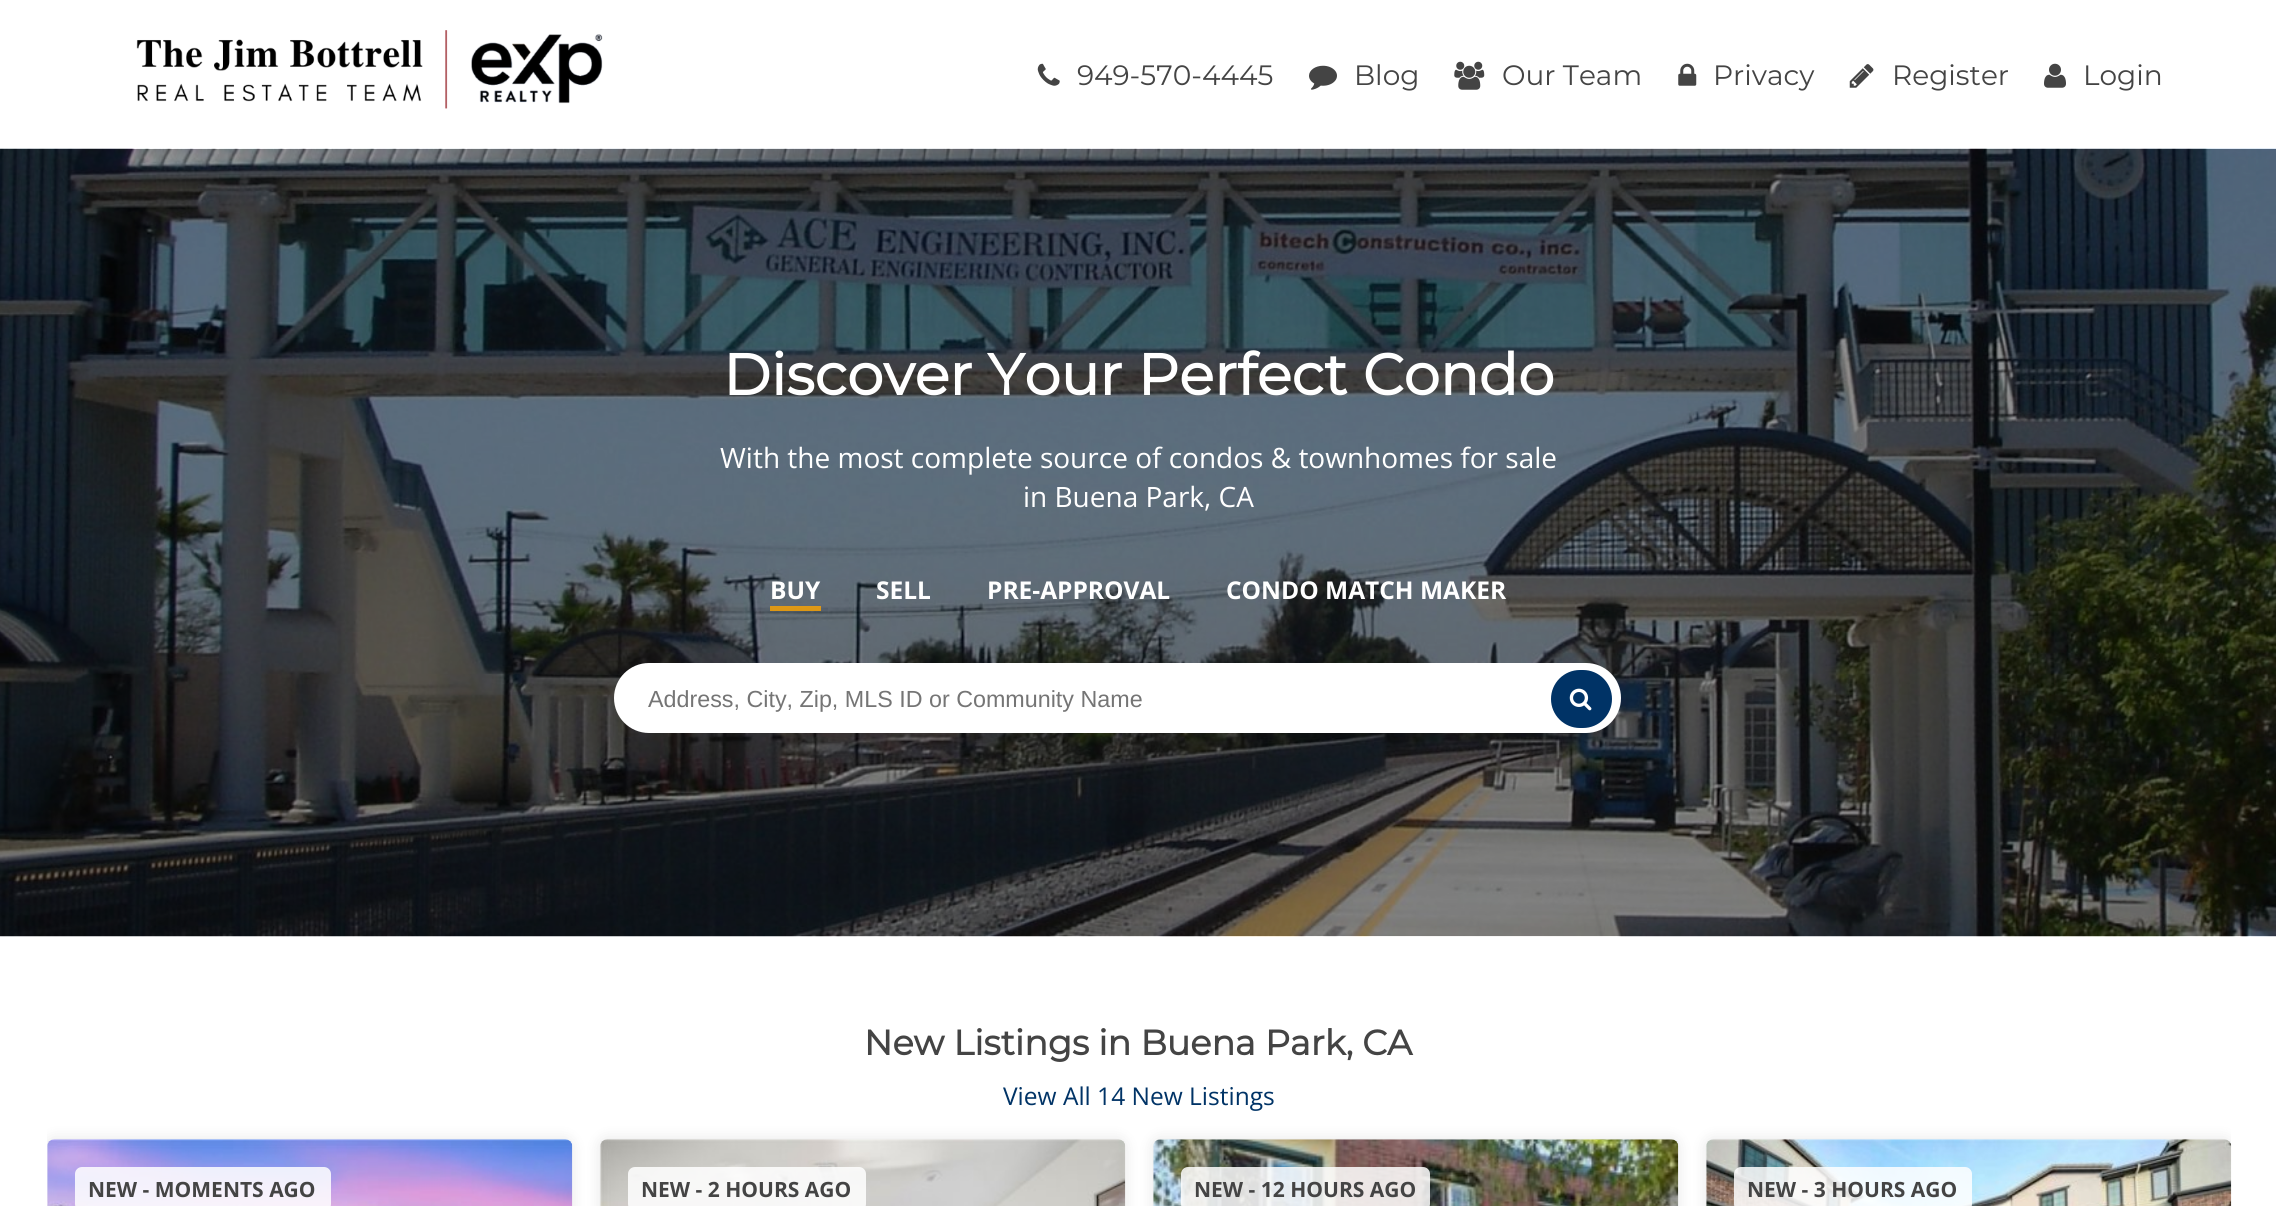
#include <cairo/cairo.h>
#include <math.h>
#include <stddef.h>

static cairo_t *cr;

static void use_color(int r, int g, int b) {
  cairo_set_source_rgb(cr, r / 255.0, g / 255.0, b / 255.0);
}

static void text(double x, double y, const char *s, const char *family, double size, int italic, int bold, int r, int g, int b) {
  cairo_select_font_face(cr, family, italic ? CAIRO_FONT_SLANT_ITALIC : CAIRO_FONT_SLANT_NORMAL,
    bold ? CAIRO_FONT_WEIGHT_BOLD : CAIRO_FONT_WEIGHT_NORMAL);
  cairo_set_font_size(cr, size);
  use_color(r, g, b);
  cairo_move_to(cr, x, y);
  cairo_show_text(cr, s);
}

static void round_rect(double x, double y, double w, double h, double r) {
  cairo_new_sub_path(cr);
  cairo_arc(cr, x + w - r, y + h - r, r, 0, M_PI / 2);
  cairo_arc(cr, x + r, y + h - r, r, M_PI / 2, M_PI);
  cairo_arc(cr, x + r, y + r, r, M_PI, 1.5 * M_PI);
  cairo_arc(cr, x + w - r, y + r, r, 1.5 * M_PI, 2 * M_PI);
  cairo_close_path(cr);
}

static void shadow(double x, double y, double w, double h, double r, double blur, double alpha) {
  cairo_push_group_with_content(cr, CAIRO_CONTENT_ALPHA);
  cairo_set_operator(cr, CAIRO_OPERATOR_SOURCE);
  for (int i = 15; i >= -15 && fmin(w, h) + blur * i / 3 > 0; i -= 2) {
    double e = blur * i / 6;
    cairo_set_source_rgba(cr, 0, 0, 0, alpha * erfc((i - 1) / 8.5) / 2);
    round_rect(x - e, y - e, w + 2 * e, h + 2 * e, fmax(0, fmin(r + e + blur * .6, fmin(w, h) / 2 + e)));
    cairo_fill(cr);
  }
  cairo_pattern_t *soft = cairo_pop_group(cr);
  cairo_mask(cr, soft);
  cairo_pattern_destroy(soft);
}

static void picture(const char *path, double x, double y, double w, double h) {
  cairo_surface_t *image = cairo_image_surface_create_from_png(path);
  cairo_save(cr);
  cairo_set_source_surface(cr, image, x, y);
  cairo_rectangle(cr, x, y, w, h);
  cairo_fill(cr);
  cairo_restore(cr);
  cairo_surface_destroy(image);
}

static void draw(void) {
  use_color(255, 255, 255);
  cairo_paint(cr);
  picture("img_01.png", 136, 30, 467, 79);
  picture("img_02.png", 1037, 63, 23, 23);
  picture("img_03.png", 1309, 65, 28, 25);
  picture("img_04.png", 1454, 61, 31, 29);
  picture("img_05.png", 1678, 63, 19, 23);
  picture("img_06.png", 1849, 64, 25, 24);
  picture("img_07.png", 2044, 63, 22, 25);
  picture("img_08.png", 0, 148, 2276, 789);
  cairo_set_source_rgba(cr, 1, 0.647, 0, 0.8);
  cairo_rectangle(cr, 770, 606, 51, 5);
  cairo_fill(cr);
  use_color(255, 255, 255);
  round_rect(614, 663, 1007, 70, 35);
  cairo_fill(cr);
  use_color(0, 51, 102);
  round_rect(1551, 670, 61, 58, 29);
  cairo_fill(cr);
  picture("img_09.png", 1569, 688, 23, 23);
  cairo_save(cr);
  cairo_rectangle(cr, 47, 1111, 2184, 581);
  cairo_clip(cr);
  use_color(0, 0, 0);
  shadow(47, 1139, 525, 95, 7, 7, 0.1);
  cairo_restore(cr);
  picture("img_10.png", 47, 1139, 526, 67);
  cairo_set_source_rgba(cr, 1, 1, 1, 0.85);
  round_rect(75, 1167, 256, 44, 7);
  cairo_fill(cr);
  use_color(0, 0, 0);
  shadow(600, 1139, 525, 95, 7, 7, 0.1);
  picture("img_11.png", 600, 1139, 526, 67);
  cairo_set_source_rgba(cr, 1, 1, 1, 0.85);
  round_rect(628, 1167, 238, 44, 7);
  cairo_fill(cr);
  use_color(0, 0, 0);
  shadow(1153, 1139, 525, 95, 7, 7, 0.1);
  picture("img_12.png", 1153, 1139, 526, 67);
  cairo_set_source_rgba(cr, 1, 1, 1, 0.85);
  round_rect(1181, 1167, 249, 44, 7);
  cairo_fill(cr);
  cairo_save(cr);
  cairo_rectangle(cr, 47, 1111, 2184, 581);
  cairo_clip(cr);
  use_color(0, 0, 0);
  shadow(1706, 1139, 525, 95, 7, 7, 0.1);
  cairo_restore(cr);
  picture("img_13.png", 1706, 1139, 526, 67);
  round_rect(1734, 1167, 238, 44, 7);
  cairo_fill(cr);
  text(1077, 85, "949-570-4445", "Montserrat Thin", 28, 0, 0, 68, 68, 68);
  text(1354, 85, "Blog", "Montserrat Thin", 28, 0, 0, 68, 68, 68);
  text(1502, 85, "Our Team", "Montserrat Thin", 28, 0, 0, 68, 68, 68);
  text(1713, 85, "Privacy", "Montserrat Thin", 28, 0, 0, 68, 68, 68);
  text(1892, 85, "Register", "Montserrat Thin", 28, 0, 0, 68, 68, 68);
  text(2083, 85, "Login", "Montserrat Thin", 28, 0, 0, 68, 68, 68);
  text(723, 395, "Discover Your Perfect Condo", "Montserrat", 57.75, 0, 1, 255, 255, 255);
  text(720, 468, "With the most complete source of condos & townhomes for sale", "Open Sans", 28, 0, 0, 255, 255, 255);
  text(1023, 507, "in Buena Park, CA", "Open Sans", 28, 0, 0, 255, 255, 255);
  text(770, 599, "BUY", "Open Sans", 24.5, 0, 1, 255, 255, 255);
  text(876, 599, "SELL", "Open Sans", 24.5, 0, 1, 255, 255, 255);
  text(987, 599, "PRE-APPROVAL", "Open Sans", 24.5, 0, 1, 255, 255, 255);
  text(1226, 599, "CONDO MATCH MAKER", "Open Sans", 24.5, 0, 1, 255, 255, 255);
  text(648, 707, "Address, City, Zip, MLS ID or Community Name", "Liberation Sans", 23.3, 0, 0, 117, 117, 117);
  text(864, 1055, "New Listings in Buena Park, CA", "Montserrat", 35, 0, 1, 68, 68, 68);
  text(1003, 1105, "View All 14 New Listings", "Open Sans", 24.5, 0, 0, 0, 51, 102);
  text(88, 1197, "NEW - MOMENTS AGO", "Open Sans", 21, 0, 1, 68, 68, 68);
  text(641, 1197, "NEW - 2 HOURS AGO", "Open Sans", 21, 0, 1, 68, 68, 68);
  text(1194, 1197, "NEW - 12 HOURS AGO", "Open Sans", 21, 0, 1, 68, 68, 68);
  text(1747, 1197, "NEW - 3 HOURS AGO", "Open Sans", 21, 0, 1, 68, 68, 68);
}

int main(void) {
  cairo_surface_t *surface = cairo_image_surface_create(CAIRO_FORMAT_RGB24, 2276, 1206);
  cr = cairo_create(surface);
  cairo_font_options_t *options = cairo_font_options_create();
  cairo_font_options_set_hint_metrics(options, CAIRO_HINT_METRICS_OFF);
  cairo_font_options_set_hint_style(options, CAIRO_HINT_STYLE_NONE);
  cairo_set_font_options(cr, options);
  cairo_set_miter_limit(cr, 4);
  draw();
  cairo_surface_write_to_png(surface, "out.png");
  cairo_font_options_destroy(options);
  cairo_destroy(cr);
  cairo_surface_destroy(surface);
  return 0;
}
